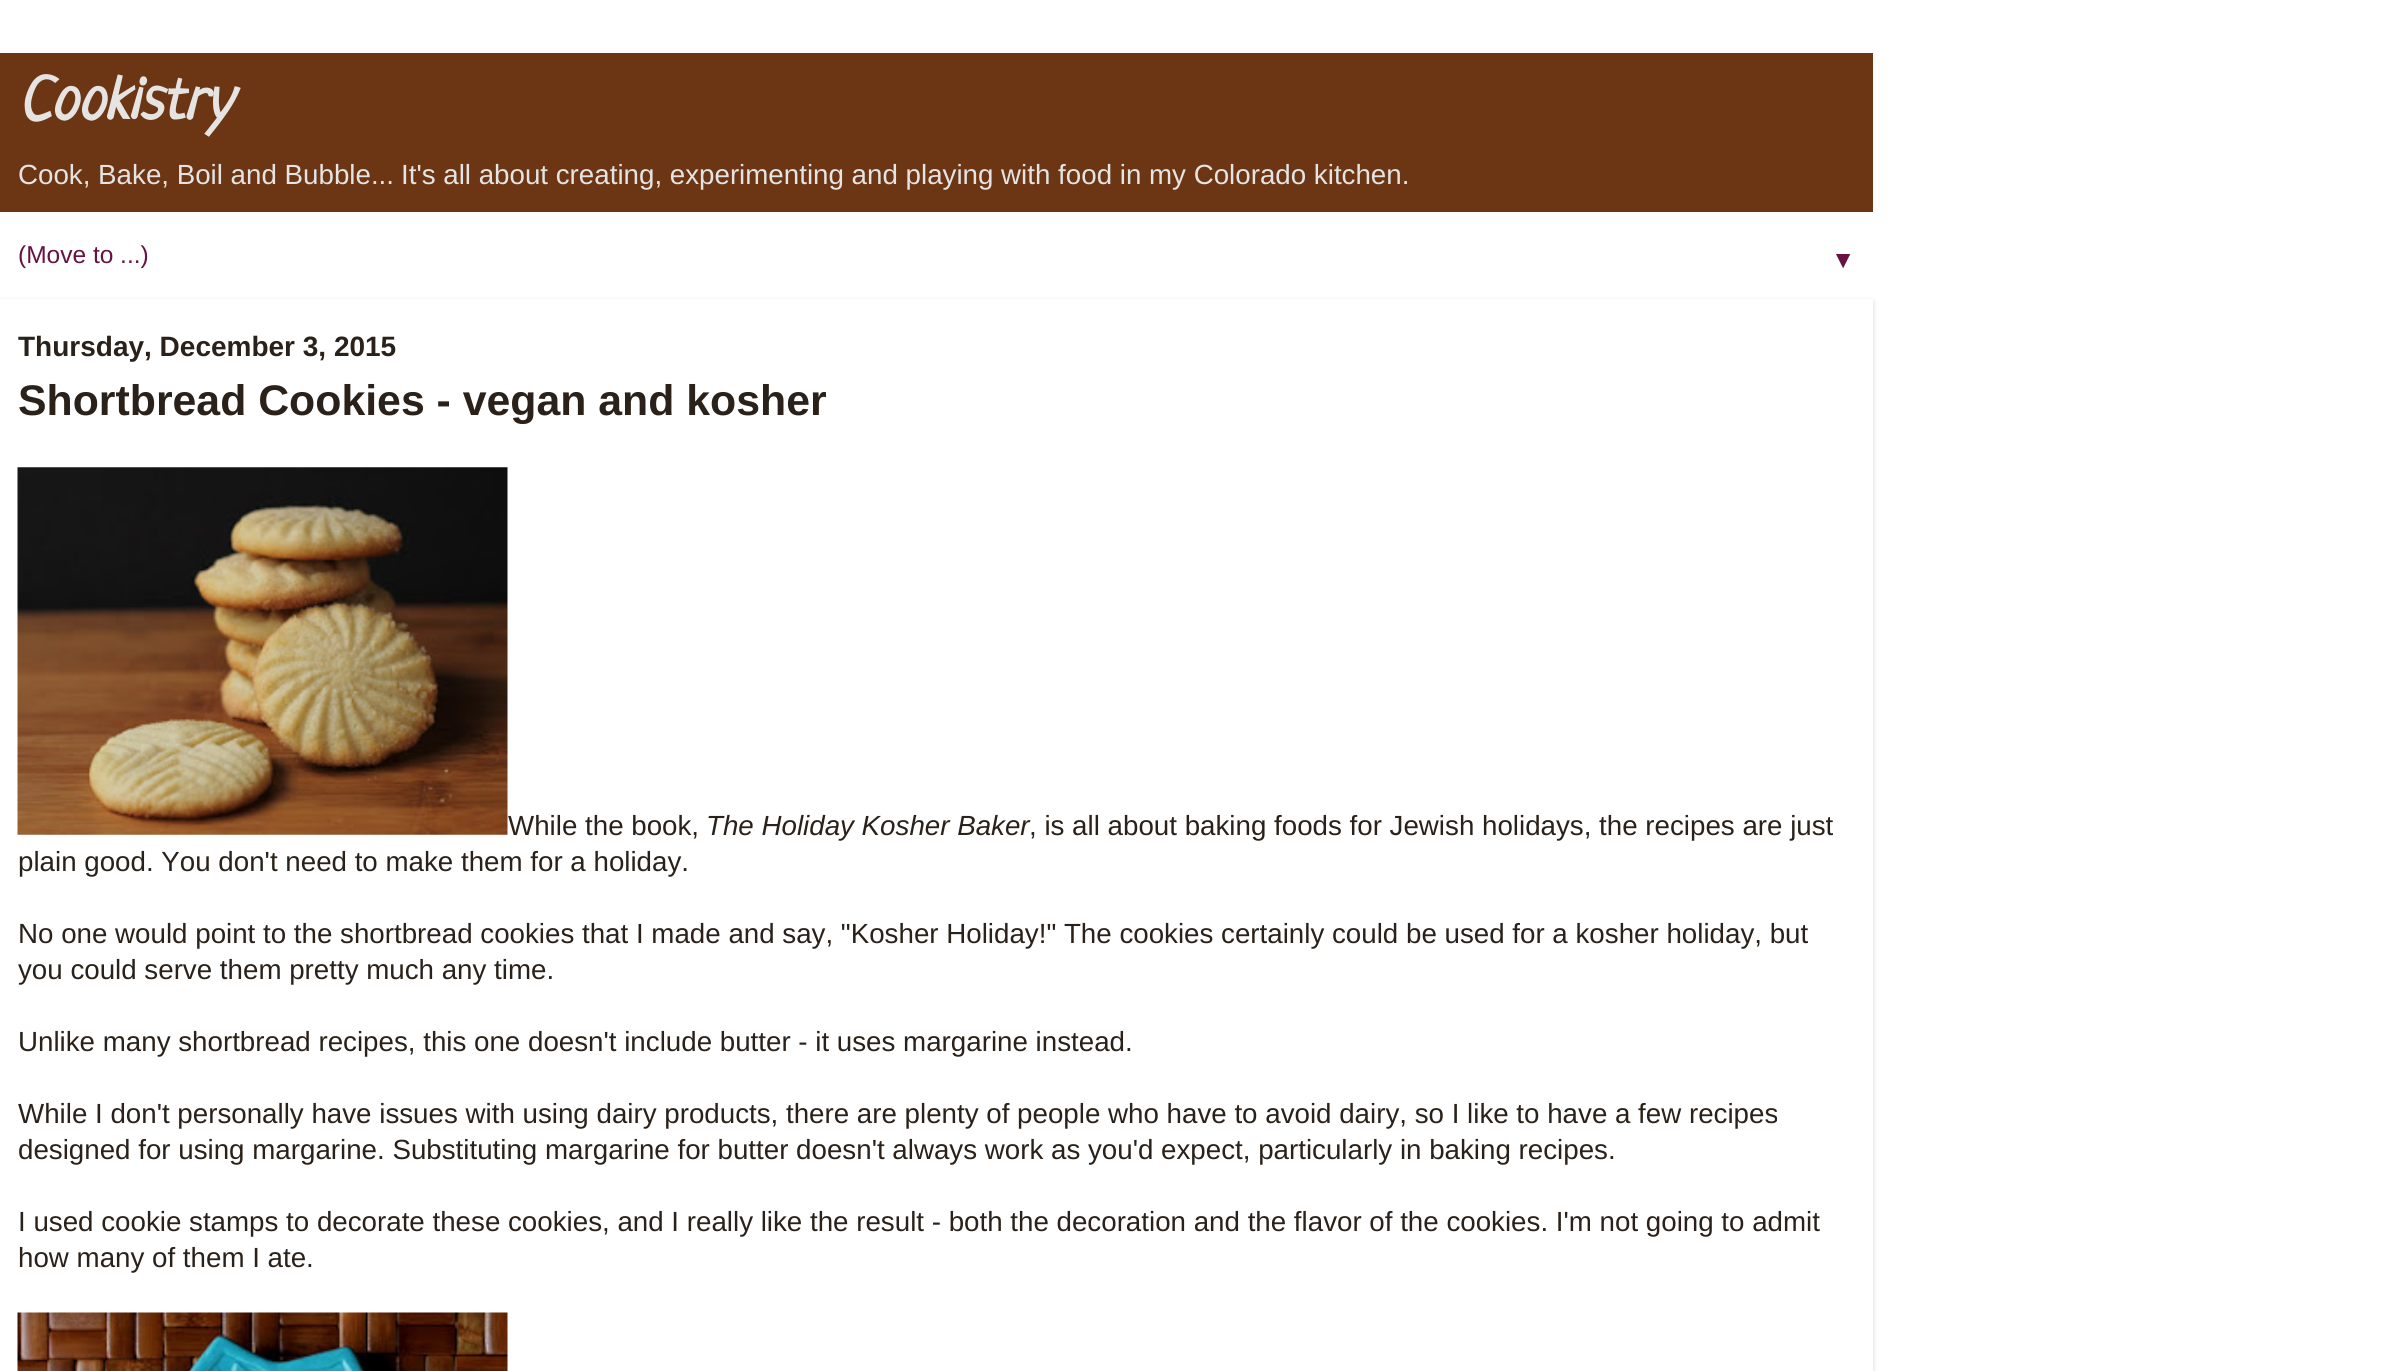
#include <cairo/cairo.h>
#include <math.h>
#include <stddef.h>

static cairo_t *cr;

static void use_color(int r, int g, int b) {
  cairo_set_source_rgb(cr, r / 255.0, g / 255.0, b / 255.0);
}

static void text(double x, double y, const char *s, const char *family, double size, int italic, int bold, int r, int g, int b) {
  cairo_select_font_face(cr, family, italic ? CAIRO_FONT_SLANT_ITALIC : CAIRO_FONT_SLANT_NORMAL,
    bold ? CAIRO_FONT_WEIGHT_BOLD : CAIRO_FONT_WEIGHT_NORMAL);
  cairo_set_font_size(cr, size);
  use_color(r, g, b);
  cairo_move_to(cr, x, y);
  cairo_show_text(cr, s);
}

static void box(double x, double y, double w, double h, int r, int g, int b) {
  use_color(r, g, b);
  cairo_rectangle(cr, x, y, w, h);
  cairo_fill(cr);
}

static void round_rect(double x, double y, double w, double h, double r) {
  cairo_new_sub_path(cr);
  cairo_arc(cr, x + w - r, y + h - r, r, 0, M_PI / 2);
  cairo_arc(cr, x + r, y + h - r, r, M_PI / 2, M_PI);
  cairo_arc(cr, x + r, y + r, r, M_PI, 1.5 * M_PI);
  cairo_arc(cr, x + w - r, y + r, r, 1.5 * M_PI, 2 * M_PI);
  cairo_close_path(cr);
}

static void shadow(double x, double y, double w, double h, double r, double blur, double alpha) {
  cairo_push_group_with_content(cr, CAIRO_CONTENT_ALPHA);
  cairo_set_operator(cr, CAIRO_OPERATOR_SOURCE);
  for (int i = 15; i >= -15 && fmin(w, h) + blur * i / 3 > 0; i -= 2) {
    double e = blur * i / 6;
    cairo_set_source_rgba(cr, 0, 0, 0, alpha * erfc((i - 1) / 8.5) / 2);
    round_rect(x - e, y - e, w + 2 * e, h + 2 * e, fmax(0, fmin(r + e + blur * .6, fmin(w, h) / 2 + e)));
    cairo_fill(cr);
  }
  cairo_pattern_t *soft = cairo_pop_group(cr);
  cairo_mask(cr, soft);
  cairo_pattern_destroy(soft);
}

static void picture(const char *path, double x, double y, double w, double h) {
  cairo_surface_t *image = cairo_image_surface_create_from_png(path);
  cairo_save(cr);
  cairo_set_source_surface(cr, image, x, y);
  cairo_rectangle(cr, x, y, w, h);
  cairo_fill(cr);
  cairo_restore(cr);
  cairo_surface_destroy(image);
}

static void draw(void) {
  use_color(255, 255, 255);
  cairo_paint(cr);
  box(0, 53, 1873, 159, 108, 54, 20);
  cairo_save(cr);
  cairo_set_fill_rule(cr, CAIRO_FILL_RULE_EVEN_ODD);
  cairo_new_path(cr);
  cairo_move_to(cr, 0, 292);
  cairo_line_to(cr, 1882, 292);
  cairo_line_to(cr, 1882, 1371);
  cairo_line_to(cr, 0, 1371);
  cairo_close_path(cr);
  cairo_move_to(cr, 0, 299);
  cairo_line_to(cr, 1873, 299);
  cairo_line_to(cr, 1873, 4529);
  cairo_line_to(cr, 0, 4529);
  cairo_close_path(cr);
  cairo_clip(cr);
  use_color(0, 0, 0);
  shadow(0, 301, 1873, 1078, 0, 2.5, 0.15);
  cairo_restore(cr);
  picture("img_02.png", 17, 1312, 491, 59);
  text(18, 119, "Cookistry", "Neucha", 60.5, 1, 1, 229, 228, 227);
  text(18, 184, "Cook, Bake, Boil and Bubble...", "Liberation Sans", 27.72, 0, 0, 229, 228, 227);
  text(401, 184, "It's all about creating, experimenting and playing with food in my Colorado kitchen.", "Liberation Sans", 27.72, 0, 0, 229, 228, 227);
  text(18, 263, "(Move to ...)", "Liberation Sans", 24.5, 0, 0, 102, 18, 66);
  text(1831, 268, "▼", "Liberation Sans", 24.5, 0, 0, 102, 18, 66);
  text(18, 356, "Thursday, December 3, 2015", "Liberation Sans", 28, 0, 1, 42, 34, 26);
  text(18, 415, "Shortbread Cookies - vegan and kosher", "Liberation Sans", 42.8, 0, 1, 42, 34, 26);
  text(508, 835, "While the book,", "Liberation Sans", 27.72, 0, 0, 42, 34, 26);
  picture("img_01.png", 17, 467, 491, 368);
  text(706, 835, "The Holiday Kosher Baker", "Liberation Sans", 27.72, 1, 0, 42, 34, 26);
  text(1029, 835, ", is all about baking foods for Jewish holidays, the recipes are just", "Liberation Sans", 27.72, 0, 0, 42, 34, 26);
  text(18, 871, "plain good. You don't need to make them for a holiday.", "Liberation Sans", 27.72, 0, 0, 42, 34, 26);
  text(18, 943, "No one would point to the shortbread cookies that I made and say, \"Kosher Holiday!\" The cookies certainly could be used for a kosher holiday, but", "Liberation Sans", 27.72, 0, 0, 42, 34, 26);
  text(18, 979, "you could serve them pretty much any time.", "Liberation Sans", 27.72, 0, 0, 42, 34, 26);
  text(18, 1051, "Unlike many shortbread recipes, this one doesn't include butter - it uses margarine instead.", "Liberation Sans", 27.72, 0, 0, 42, 34, 26);
  text(18, 1123, "While I don't personally have issues with using dairy products, there are plenty of people who have to avoid dairy, so I like to have a few recipes", "Liberation Sans", 27.72, 0, 0, 42, 34, 26);
  text(18, 1159, "designed for using margarine. Substituting margarine for butter doesn't always work as you'd expect, particularly in baking recipes.", "Liberation Sans", 27.72, 0, 0, 42, 34, 26);
  text(18, 1231, "I used cookie stamps to decorate these cookies, and I really like the result - both the decoration and the flavor of the cookies. I'm not going to admit", "Liberation Sans", 27.72, 0, 0, 42, 34, 26);
  text(18, 1267, "how many of them I ate.", "Liberation Sans", 27.72, 0, 0, 42, 34, 26);
}

int main(void) {
  cairo_surface_t *surface = cairo_image_surface_create(CAIRO_FORMAT_RGB24, 2393, 1371);
  cr = cairo_create(surface);
  cairo_font_options_t *options = cairo_font_options_create();
  cairo_font_options_set_hint_metrics(options, CAIRO_HINT_METRICS_OFF);
  cairo_font_options_set_hint_style(options, CAIRO_HINT_STYLE_NONE);
  cairo_set_font_options(cr, options);
  cairo_set_miter_limit(cr, 4);
  draw();
  cairo_surface_write_to_png(surface, "out.png");
  cairo_font_options_destroy(options);
  cairo_destroy(cr);
  cairo_surface_destroy(surface);
  return 0;
}
